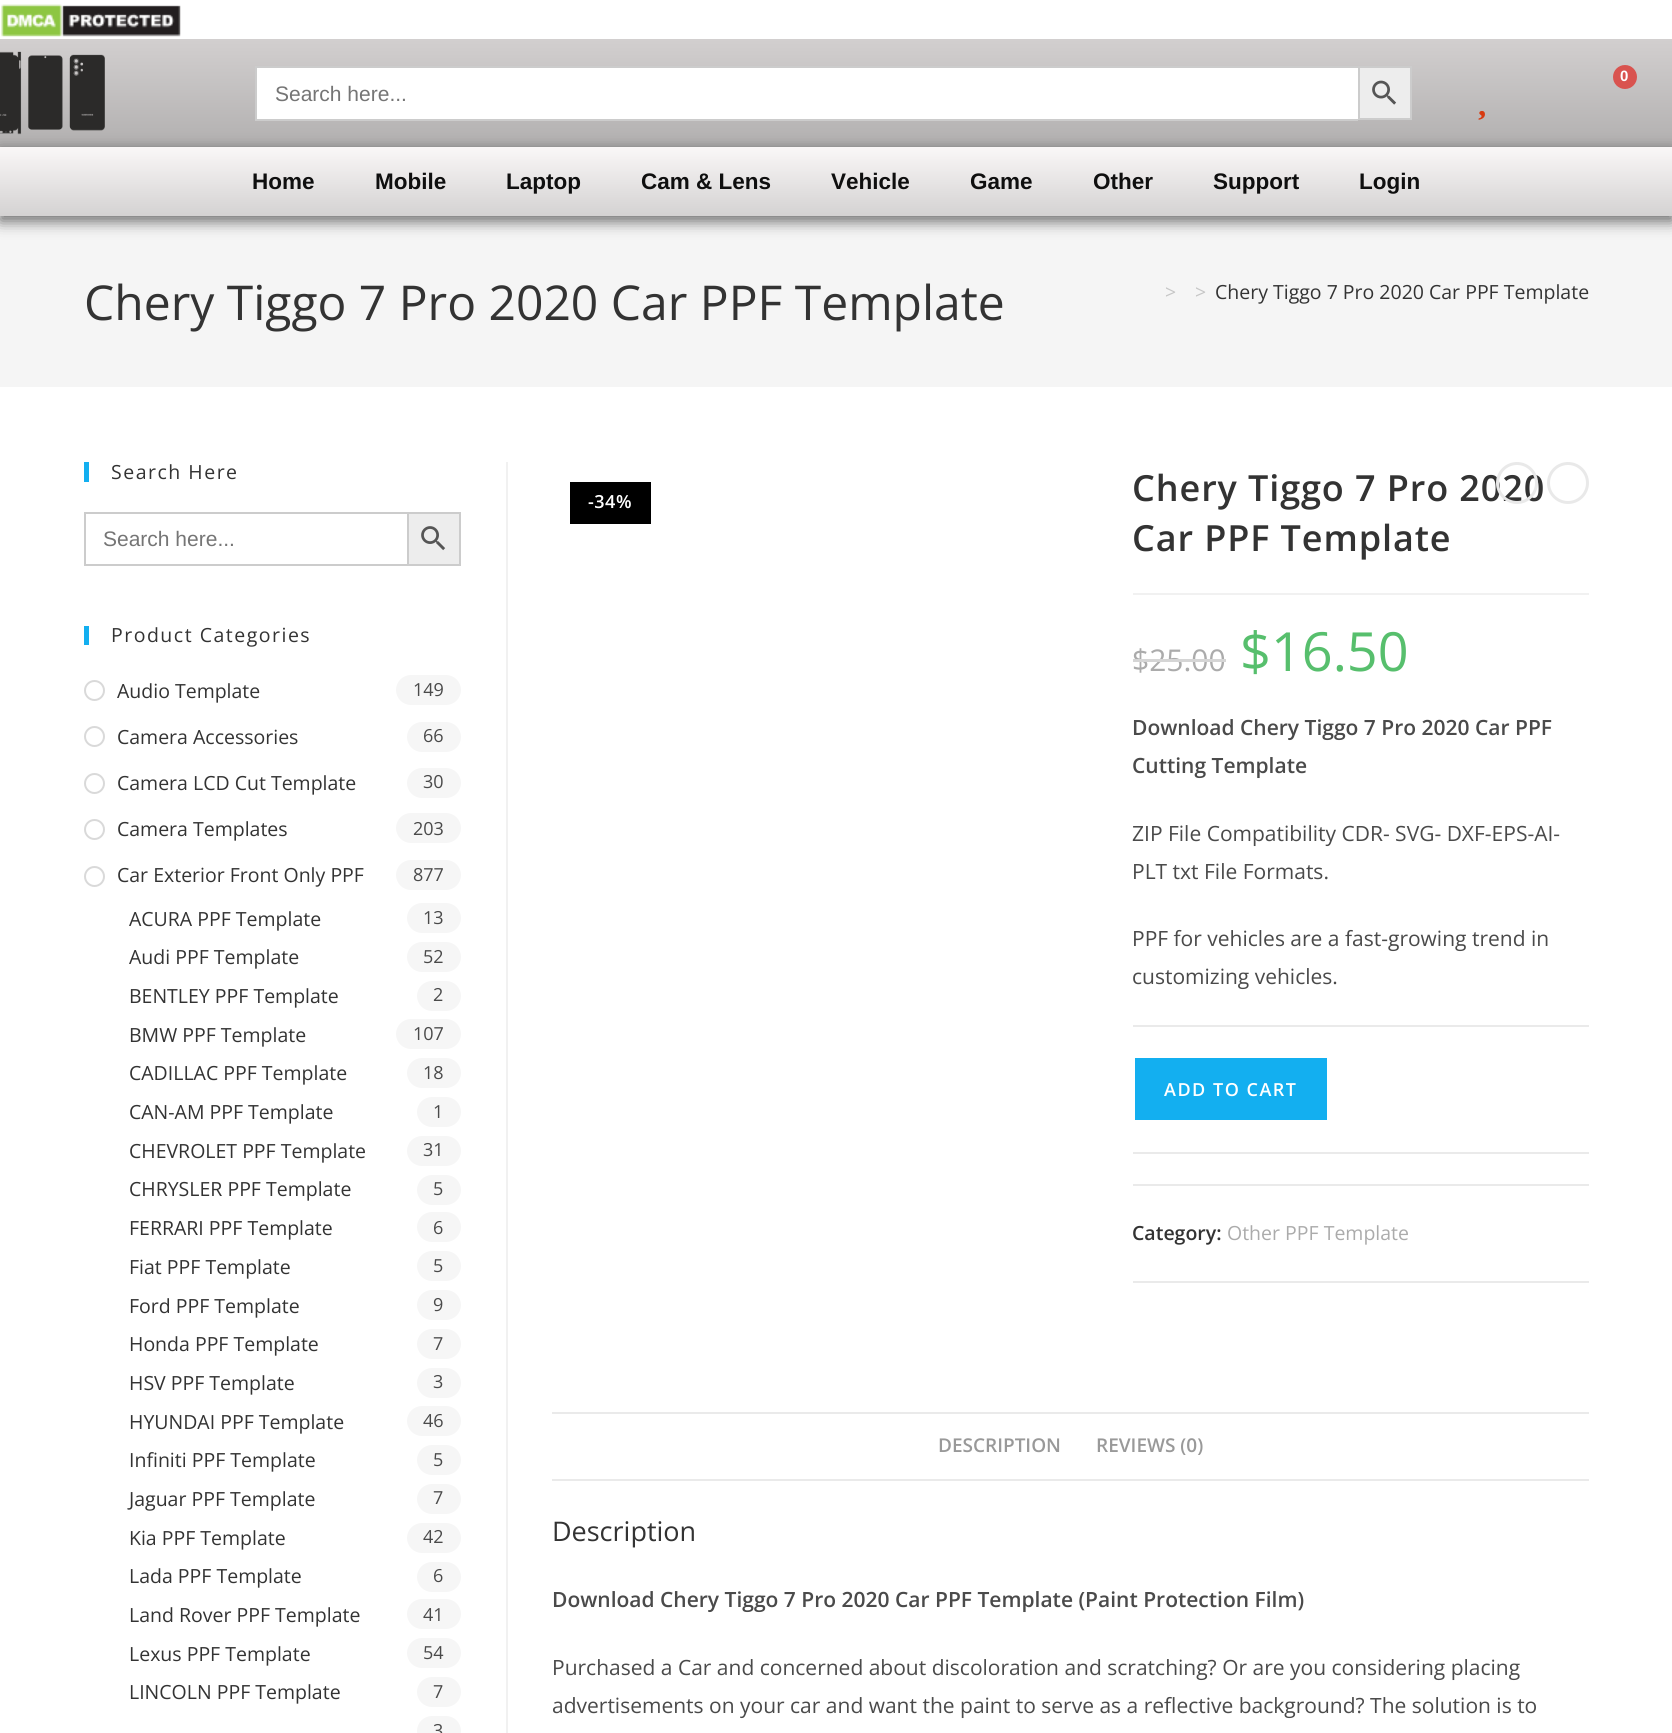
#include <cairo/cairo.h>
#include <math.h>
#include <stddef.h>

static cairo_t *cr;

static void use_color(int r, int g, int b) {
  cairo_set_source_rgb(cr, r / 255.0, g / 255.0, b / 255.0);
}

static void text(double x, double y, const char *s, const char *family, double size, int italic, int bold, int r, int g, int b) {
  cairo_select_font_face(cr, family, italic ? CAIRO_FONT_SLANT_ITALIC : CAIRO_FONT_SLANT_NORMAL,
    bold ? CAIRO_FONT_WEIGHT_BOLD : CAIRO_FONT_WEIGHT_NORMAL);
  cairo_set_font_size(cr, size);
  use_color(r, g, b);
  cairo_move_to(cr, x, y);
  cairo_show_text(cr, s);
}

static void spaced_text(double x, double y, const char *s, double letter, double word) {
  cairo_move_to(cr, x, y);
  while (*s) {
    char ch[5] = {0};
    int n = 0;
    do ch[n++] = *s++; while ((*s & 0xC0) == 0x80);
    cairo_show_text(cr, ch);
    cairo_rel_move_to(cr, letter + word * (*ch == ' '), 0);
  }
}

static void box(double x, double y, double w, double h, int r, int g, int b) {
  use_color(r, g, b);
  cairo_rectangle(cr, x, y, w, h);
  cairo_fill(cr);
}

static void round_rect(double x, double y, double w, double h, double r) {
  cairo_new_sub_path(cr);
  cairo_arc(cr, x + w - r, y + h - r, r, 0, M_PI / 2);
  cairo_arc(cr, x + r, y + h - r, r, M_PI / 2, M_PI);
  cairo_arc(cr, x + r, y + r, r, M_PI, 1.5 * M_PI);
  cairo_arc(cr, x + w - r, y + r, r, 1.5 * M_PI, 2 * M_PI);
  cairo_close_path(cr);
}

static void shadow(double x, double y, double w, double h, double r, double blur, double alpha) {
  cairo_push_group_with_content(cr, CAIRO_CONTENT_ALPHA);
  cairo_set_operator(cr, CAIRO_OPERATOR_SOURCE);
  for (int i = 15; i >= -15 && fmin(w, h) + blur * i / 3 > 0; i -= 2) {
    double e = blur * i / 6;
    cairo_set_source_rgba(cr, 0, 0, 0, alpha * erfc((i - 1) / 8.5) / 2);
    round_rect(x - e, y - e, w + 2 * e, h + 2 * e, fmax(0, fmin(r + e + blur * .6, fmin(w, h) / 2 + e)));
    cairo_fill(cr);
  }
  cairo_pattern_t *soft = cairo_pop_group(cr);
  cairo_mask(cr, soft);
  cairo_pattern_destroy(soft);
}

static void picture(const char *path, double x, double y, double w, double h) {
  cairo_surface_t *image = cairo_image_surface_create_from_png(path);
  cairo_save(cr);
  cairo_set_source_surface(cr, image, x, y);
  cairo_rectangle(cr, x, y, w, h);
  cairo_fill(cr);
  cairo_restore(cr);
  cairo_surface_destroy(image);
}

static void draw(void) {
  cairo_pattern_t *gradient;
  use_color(255, 255, 255);
  cairo_paint(cr);
  picture("img_01.png", 1, 4, 180, 33);
  gradient = cairo_pattern_create_linear(836, 39, 836, 147);
  cairo_pattern_add_color_stop_rgba(gradient, 0, 0.824, 0.812, 0.812, 1);
  cairo_pattern_add_color_stop_rgba(gradient, 1, 0.698, 0.69, 0.69, 1);
  cairo_set_source(cr, gradient);
  cairo_pattern_destroy(gradient);
  cairo_rectangle(cr, 0, 39, 1672, 108);
  cairo_fill(cr);
  picture("img_02.png", 0, 51, 105, 84);
  use_color(217, 83, 79);
  cairo_arc(cr, 1625, 77, 12, 0, 2 * M_PI);
  cairo_fill(cr);
  box(257, 68, 1101, 51, 255, 255, 255);
  box(255, 66, 1103, 2, 204, 204, 204);
  box(255, 119, 1103, 2, 204, 204, 204);
  box(255, 66, 2, 54, 204, 204, 204);
  use_color(237, 237, 237);
  cairo_rectangle(cr, 1359, 67, 52, 52);
  cairo_fill_preserve(cr);
  use_color(204, 204, 204);
  cairo_stroke(cr);
  picture("img_03.png", 1372, 80, 25, 25);
  picture("img_04.png", 1478, 110, 7, 10);
  box(0, 218, 1672, 169, 245, 245, 245);
  use_color(0, 0, 0);
  shadow(0, 152, 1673, 69, 0, 7.5, 0.6);
  gradient = cairo_pattern_create_linear(836, 216, 836, 147);
  cairo_pattern_add_color_stop_rgba(gradient, 0, 0.831, 0.824, 0.824, 1);
  cairo_pattern_add_color_stop_rgba(gradient, 1, 0.98, 0.969, 0.969, 1);
  cairo_set_source(cr, gradient);
  cairo_pattern_destroy(gradient);
  cairo_rectangle(cr, 0, 147, 1672, 69);
  cairo_fill(cr);
  box(84, 462, 5, 20, 19, 175, 240);
  box(84, 512, 323, 2, 204, 204, 204);
  box(84, 564, 323, 2, 204, 204, 204);
  box(84, 512, 2, 54, 204, 204, 204);
  use_color(237, 237, 237);
  cairo_rectangle(cr, 408, 513, 52, 52);
  cairo_fill_preserve(cr);
  use_color(204, 204, 204);
  cairo_stroke(cr);
  picture("img_05.png", 421, 526, 25, 25);
  box(84, 626, 5, 19, 19, 175, 240);
  cairo_arc(cr, 94.5, 690.5, 9.5, 0, 2 * M_PI);
  use_color(217, 217, 217);
  cairo_stroke(cr);
  use_color(246, 246, 246);
  round_rect(396, 675, 65, 30, 15);
  cairo_fill(cr);
  cairo_arc(cr, 94.5, 736.5, 9.5, 0, 2 * M_PI);
  use_color(217, 217, 217);
  cairo_stroke(cr);
  use_color(246, 246, 246);
  round_rect(407, 722, 54, 30, 15);
  cairo_fill(cr);
  cairo_arc(cr, 94.5, 783.5, 9.5, 0, 2 * M_PI);
  use_color(217, 217, 217);
  cairo_stroke(cr);
  use_color(246, 246, 246);
  round_rect(407, 768, 54, 30, 15);
  cairo_fill(cr);
  cairo_arc(cr, 94.5, 829.5, 9.5, 0, 2 * M_PI);
  use_color(217, 217, 217);
  cairo_stroke(cr);
  use_color(246, 246, 246);
  round_rect(396, 813, 65, 30, 15);
  cairo_fill(cr);
  cairo_arc(cr, 94.5, 876.5, 9.5, 0, 2 * M_PI);
  use_color(217, 217, 217);
  cairo_stroke(cr);
  use_color(246, 246, 246);
  round_rect(396, 860, 65, 30, 15);
  cairo_fill(cr);
  round_rect(407, 903, 54, 30, 15);
  cairo_fill(cr);
  round_rect(407, 942, 54, 30, 15);
  cairo_fill(cr);
  round_rect(417, 981, 44, 30, 15);
  cairo_fill(cr);
  round_rect(396, 1019, 65, 30, 15);
  cairo_fill(cr);
  round_rect(407, 1058, 54, 30, 15);
  cairo_fill(cr);
  round_rect(417, 1097, 44, 30, 15);
  cairo_fill(cr);
  round_rect(407, 1136, 54, 30, 15);
  cairo_fill(cr);
  round_rect(417, 1175, 44, 30, 15);
  cairo_fill(cr);
  round_rect(417, 1212, 44, 30, 15);
  cairo_fill(cr);
  round_rect(417, 1251, 44, 30, 15);
  cairo_fill(cr);
  round_rect(417, 1290, 44, 30, 15);
  cairo_fill(cr);
  round_rect(417, 1329, 44, 30, 15);
  cairo_fill(cr);
  round_rect(417, 1368, 44, 30, 15);
  cairo_fill(cr);
  round_rect(407, 1406, 54, 30, 15);
  cairo_fill(cr);
  round_rect(417, 1445, 44, 30, 15);
  cairo_fill(cr);
  round_rect(417, 1484, 44, 30, 15);
  cairo_fill(cr);
  round_rect(407, 1523, 54, 30, 15);
  cairo_fill(cr);
  round_rect(417, 1562, 44, 30, 15);
  cairo_fill(cr);
  round_rect(407, 1599, 54, 30, 15);
  cairo_fill(cr);
  round_rect(407, 1638, 54, 30, 15);
  cairo_fill(cr);
  round_rect(417, 1677, 44, 30, 15);
  cairo_fill(cr);
  round_rect(417, 1716, 44, 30, 15);
  cairo_fill(cr);
  box(506, 462, 2, 1271, 241, 241, 241);
  cairo_arc(cr, 1568, 483, 19.5, 0, 2 * M_PI);
  use_color(233, 233, 233);
  cairo_set_line_width(cr, 3);
  cairo_stroke(cr);
  box(570, 482, 81, 42, 0, 0, 0);
  box(1133, 593, 456, 2, 241, 241, 241);
  box(1133, 1025, 456, 2, 234, 234, 234);
  box(1133, 1152, 456, 2, 234, 234, 234);
  box(1135, 1058, 192, 62, 19, 175, 240);
  box(1133, 1184, 456, 2, 234, 234, 234);
  box(1133, 1281, 456, 2, 234, 234, 234);
  box(552, 1412, 1037, 2, 234, 234, 234);
  box(552, 1479, 1037, 2, 234, 234, 234);
  text(1620, 81, "0", "Liberation Sans", 15, 0, 1, 255, 255, 255);
  text(275, 101, "Search here...", "Liberation Sans", 21, 0, 0, 117, 117, 117);
  text(252, 189, "Home", "Liberation Sans", 22.5, 0, 1, 15, 15, 15);
  text(375, 189, "Mobile", "Liberation Sans", 22.5, 0, 1, 15, 15, 15);
  text(506, 189, "Laptop", "Liberation Sans", 22.5, 0, 1, 15, 15, 15);
  text(641, 189, "Cam & Lens", "Liberation Sans", 22.5, 0, 1, 15, 15, 15);
  text(831, 189, "Vehicle", "Liberation Sans", 22.5, 0, 1, 15, 15, 15);
  text(970, 189, "Game", "Liberation Sans", 22.5, 0, 1, 15, 15, 15);
  text(1093, 189, "Other", "Liberation Sans", 22.5, 0, 1, 15, 15, 15);
  text(1213, 189, "Support", "Liberation Sans", 22.5, 0, 1, 15, 15, 15);
  text(1359, 189, "Login", "Liberation Sans", 22.5, 0, 1, 15, 15, 15);
  text(84, 320, "Chery Tiggo 7 Pro 2020 Car PPF Template", "Open Sans", 48, 0, 0, 51, 51, 51);
  text(1165, 299, ">", "Open Sans", 19.5, 0, 0, 198, 198, 198);
  text(1195, 299, ">", "Open Sans", 19.5, 0, 0, 198, 198, 198);
  text(1215, 299, "Chery Tiggo 7 Pro 2020 Car PPF Template", "Open Sans", 19.5, 0, 0, 51, 51, 51);
  spaced_text(111, 479, "Search Here", 1.5, 0);
  text(103, 546, "Search here...", "Liberation Sans", 21, 0, 0, 117, 117, 117);
  cairo_select_font_face(cr, "Open Sans", CAIRO_FONT_SLANT_NORMAL, CAIRO_FONT_WEIGHT_NORMAL);
  cairo_set_font_size(cr, 19.5);
  use_color(51, 51, 51);
  spaced_text(111, 642, "Product Categories", 1.5, 0);
  text(117, 698, "Audio Template", "Open Sans", 19.5, 0, 0, 51, 51, 51);
  text(413, 696, "149", "Open Sans", 18, 0, 0, 74, 74, 74);
  text(117, 744, "Camera Accessories", "Open Sans", 19.5, 0, 0, 51, 51, 51);
  text(423, 742, "66", "Open Sans", 18, 0, 0, 74, 74, 74);
  text(117, 790, "Camera LCD Cut Template", "Open Sans", 19.5, 0, 0, 51, 51, 51);
  text(423, 788, "30", "Open Sans", 18, 0, 0, 74, 74, 74);
  text(117, 836, "Camera Templates", "Open Sans", 19.5, 0, 0, 51, 51, 51);
  text(413, 835, "203", "Open Sans", 18, 0, 0, 74, 74, 74);
  text(117, 882, "Car Exterior Front Only PPF", "Open Sans", 19.5, 0, 0, 51, 51, 51);
  text(413, 881, "877", "Open Sans", 18, 0, 0, 74, 74, 74);
  text(129, 926, "ACURA PPF Template", "Open Sans", 19.5, 0, 0, 51, 51, 51);
  text(423, 924, "13", "Open Sans", 18, 0, 0, 74, 74, 74);
  text(129, 964, "Audi PPF Template", "Open Sans", 19.5, 0, 0, 51, 51, 51);
  text(423, 963, "52", "Open Sans", 18, 0, 0, 74, 74, 74);
  text(129, 1003, "BENTLEY PPF Template", "Open Sans", 19.5, 0, 0, 51, 51, 51);
  text(433, 1001, "2", "Open Sans", 18, 0, 0, 74, 74, 74);
  text(129, 1042, "BMW PPF Template", "Open Sans", 19.5, 0, 0, 51, 51, 51);
  text(413, 1040, "107", "Open Sans", 18, 0, 0, 74, 74, 74);
  text(129, 1080, "CADILLAC PPF Template", "Open Sans", 19.5, 0, 0, 51, 51, 51);
  text(423, 1079, "18", "Open Sans", 18, 0, 0, 74, 74, 74);
  text(129, 1119, "CAN-AM PPF Template", "Open Sans", 19.5, 0, 0, 51, 51, 51);
  text(433, 1118, "1", "Open Sans", 18, 0, 0, 74, 74, 74);
  text(129, 1158, "CHEVROLET PPF Template", "Open Sans", 19.5, 0, 0, 51, 51, 51);
  text(423, 1156, "31", "Open Sans", 18, 0, 0, 74, 74, 74);
  text(129, 1196, "CHRYSLER PPF Template", "Open Sans", 19.5, 0, 0, 51, 51, 51);
  text(433, 1195, "5", "Open Sans", 18, 0, 0, 74, 74, 74);
  text(129, 1235, "FERRARI PPF Template", "Open Sans", 19.5, 0, 0, 51, 51, 51);
  text(433, 1234, "6", "Open Sans", 18, 0, 0, 74, 74, 74);
  text(129, 1274, "Fiat PPF Template", "Open Sans", 19.5, 0, 0, 51, 51, 51);
  text(433, 1272, "5", "Open Sans", 18, 0, 0, 74, 74, 74);
  text(129, 1313, "Ford PPF Template", "Open Sans", 19.5, 0, 0, 51, 51, 51);
  text(433, 1311, "9", "Open Sans", 18, 0, 0, 74, 74, 74);
  text(129, 1351, "Honda PPF Template", "Open Sans", 19.5, 0, 0, 51, 51, 51);
  text(433, 1350, "7", "Open Sans", 18, 0, 0, 74, 74, 74);
  text(129, 1390, "HSV PPF Template", "Open Sans", 19.5, 0, 0, 51, 51, 51);
  text(433, 1388, "3", "Open Sans", 18, 0, 0, 74, 74, 74);
  text(129, 1429, "HYUNDAI PPF Template", "Open Sans", 19.5, 0, 0, 51, 51, 51);
  text(423, 1427, "46", "Open Sans", 18, 0, 0, 74, 74, 74);
  text(129, 1467, "Infiniti PPF Template", "Open Sans", 19.5, 0, 0, 51, 51, 51);
  text(433, 1466, "5", "Open Sans", 18, 0, 0, 74, 74, 74);
  text(129, 1506, "Jaguar PPF Template", "Open Sans", 19.5, 0, 0, 51, 51, 51);
  text(433, 1504, "7", "Open Sans", 18, 0, 0, 74, 74, 74);
  text(129, 1545, "Kia PPF Template", "Open Sans", 19.5, 0, 0, 51, 51, 51);
  text(423, 1543, "42", "Open Sans", 18, 0, 0, 74, 74, 74);
  text(129, 1583, "Lada PPF Template", "Open Sans", 19.5, 0, 0, 51, 51, 51);
  text(433, 1582, "6", "Open Sans", 18, 0, 0, 74, 74, 74);
  text(129, 1622, "Land Rover PPF Template", "Open Sans", 19.5, 0, 0, 51, 51, 51);
  text(423, 1621, "41", "Open Sans", 18, 0, 0, 74, 74, 74);
  text(129, 1661, "Lexus PPF Template", "Open Sans", 19.5, 0, 0, 51, 51, 51);
  text(423, 1659, "54", "Open Sans", 18, 0, 0, 74, 74, 74);
  text(129, 1699, "LINCOLN PPF Template", "Open Sans", 19.5, 0, 0, 51, 51, 51);
  text(433, 1698, "7", "Open Sans", 18, 0, 0, 74, 74, 74);
  text(433, 1737, "3", "Open Sans", 18, 0, 0, 74, 74, 74);
  cairo_select_font_face(cr, "Open Sans SemiBold", CAIRO_FONT_SLANT_NORMAL, CAIRO_FONT_WEIGHT_NORMAL);
  use_color(255, 255, 255);
  spaced_text(588, 508, "-34%", 0.5, 0);
  cairo_set_font_size(cr, 36);
  use_color(51, 51, 51);
  spaced_text(1132, 501, "Chery Tiggo 7 Pro 2020", 0.9, 0);
  cairo_new_path(cr);
  cairo_arc(cr, 1517, 483, 19.5, 0, 2 * M_PI);
  use_color(233, 233, 233);
  cairo_stroke(cr);
  use_color(51, 51, 51);
  spaced_text(1132, 551, "Car PPF Template", 0.9, 0);
  text(1132, 671, "$25.00", "Open Sans", 30, 0, 0, 171, 171, 171);
  box(1133, 659, 93, 3, 213, 213, 213);
  text(1240, 671, "$16.50", "Open Sans", 54, 0, 0, 87, 191, 109);
  text(1132, 735, "Download Chery Tiggo 7 Pro 2020 Car PPF", "Open Sans SemiBold", 21, 0, 0, 74, 74, 74);
  text(1132, 773, "Cutting Template", "Open Sans SemiBold", 21, 0, 0, 74, 74, 74);
  text(1132, 841, "ZIP File Compatibility CDR- SVG- DXF-EPS-AI-", "Open Sans", 21, 0, 0, 74, 74, 74);
  text(1132, 879, "PLT txt File Formats.", "Open Sans", 21, 0, 0, 74, 74, 74);
  text(1132, 946, "PPF for vehicles are a fast-growing trend in", "Open Sans", 21, 0, 0, 74, 74, 74);
  text(1132, 984, "customizing vehicles.", "Open Sans", 21, 0, 0, 74, 74, 74);
  cairo_select_font_face(cr, "Open Sans SemiBold", CAIRO_FONT_SLANT_NORMAL, CAIRO_FONT_WEIGHT_NORMAL);
  cairo_set_font_size(cr, 18);
  use_color(255, 255, 255);
  spaced_text(1164, 1096, "ADD TO CART", 1.5, 0);
  text(1132, 1240, "Category:", "Open Sans SemiBold", 19.5, 0, 0, 51, 51, 51);
  text(1227, 1240, "Other PPF Template", "Open Sans", 19.5, 0, 0, 171, 171, 171);
  text(938, 1452, "DESCRIPTION", "Open Sans SemiBold", 19, 0, 0, 153, 153, 153);
  text(1096, 1452, "REVIEWS (0)", "Open Sans SemiBold", 19, 0, 0, 153, 153, 153);
  text(552, 1541, "Description", "Open Sans", 27, 0, 0, 51, 51, 51);
  text(552, 1607, "Download Chery Tiggo 7 Pro 2020 Car PPF Template (Paint Protection Film)", "Open Sans SemiBold", 21, 0, 0, 74, 74, 74);
  text(552, 1675, "Purchased a Car and concerned about discoloration and scratching? Or are you considering placing", "Open Sans", 21, 0, 0, 74, 74, 74);
  text(552, 1713, "advertisements on your car and want the paint to serve as a reflective background? The solution is to", "Open Sans", 21, 0, 0, 74, 74, 74);
}

int main(void) {
  cairo_surface_t *surface = cairo_image_surface_create(CAIRO_FORMAT_RGB24, 1672, 1733);
  cr = cairo_create(surface);
  cairo_font_options_t *options = cairo_font_options_create();
  cairo_font_options_set_hint_metrics(options, CAIRO_HINT_METRICS_OFF);
  cairo_font_options_set_hint_style(options, CAIRO_HINT_STYLE_NONE);
  cairo_set_font_options(cr, options);
  cairo_set_miter_limit(cr, 4);
  draw();
  cairo_surface_write_to_png(surface, "out.png");
  cairo_font_options_destroy(options);
  cairo_destroy(cr);
  cairo_surface_destroy(surface);
  return 0;
}
